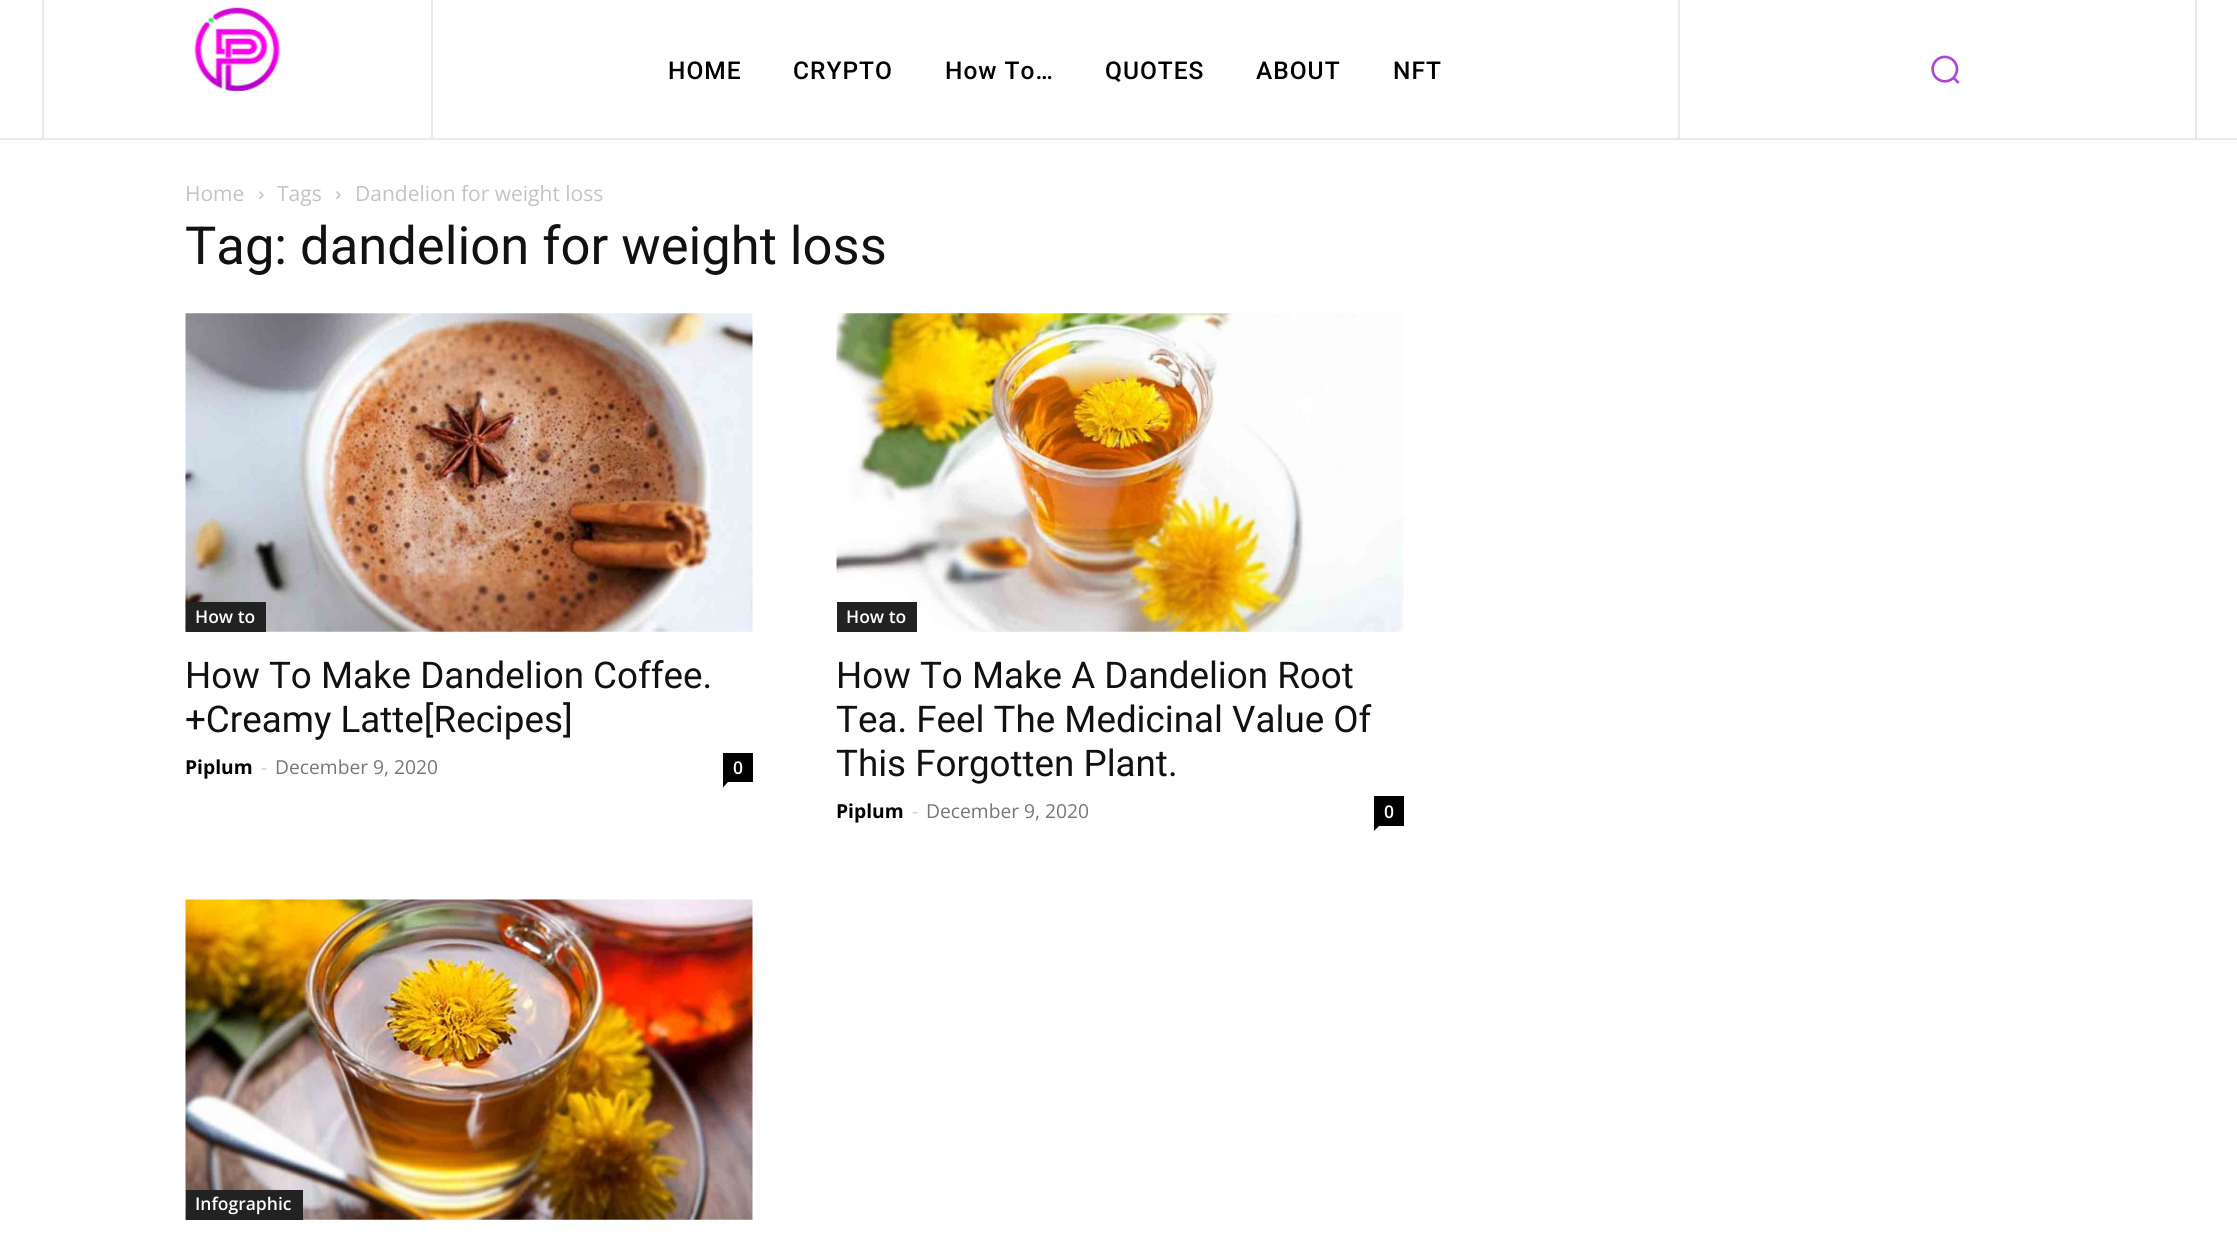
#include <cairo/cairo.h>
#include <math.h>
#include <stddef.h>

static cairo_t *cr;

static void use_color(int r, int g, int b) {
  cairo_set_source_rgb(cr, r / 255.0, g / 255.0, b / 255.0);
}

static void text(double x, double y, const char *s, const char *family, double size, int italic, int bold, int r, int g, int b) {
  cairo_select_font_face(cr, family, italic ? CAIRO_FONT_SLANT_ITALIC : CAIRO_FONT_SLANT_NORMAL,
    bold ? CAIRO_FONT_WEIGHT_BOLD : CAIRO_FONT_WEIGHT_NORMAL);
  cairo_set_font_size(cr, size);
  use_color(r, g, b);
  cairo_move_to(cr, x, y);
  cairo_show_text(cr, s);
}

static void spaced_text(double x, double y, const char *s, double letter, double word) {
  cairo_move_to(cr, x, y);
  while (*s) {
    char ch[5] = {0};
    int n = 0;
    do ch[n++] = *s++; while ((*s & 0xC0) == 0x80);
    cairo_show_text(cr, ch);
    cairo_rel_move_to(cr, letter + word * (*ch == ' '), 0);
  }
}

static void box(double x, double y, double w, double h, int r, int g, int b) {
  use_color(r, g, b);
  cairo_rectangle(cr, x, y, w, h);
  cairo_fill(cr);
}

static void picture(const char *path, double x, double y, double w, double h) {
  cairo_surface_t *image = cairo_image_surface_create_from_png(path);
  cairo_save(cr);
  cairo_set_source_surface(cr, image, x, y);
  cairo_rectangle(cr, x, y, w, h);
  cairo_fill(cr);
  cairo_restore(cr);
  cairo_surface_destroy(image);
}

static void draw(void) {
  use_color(255, 255, 255);
  cairo_paint(cr);
  box(0, 138, 2237, 2, 234, 234, 234);
  box(42, 0, 2, 138, 234, 234, 234);
  picture("img_01.png", 194, 7, 86, 84);
  box(1678, 0, 2, 138, 234, 234, 234);
  box(431, 0, 2, 138, 234, 234, 234);
  box(2195, 0, 2, 138, 234, 234, 234);
  picture("img_02.png", 1931, 55, 29, 29);
  picture("img_03.png", 259, 191, 5, 9);
  picture("img_03.png", 336, 191, 5, 9);
  picture("img_04.png", 185, 313, 568, 319);
  box(186, 602, 80, 30, 34, 34, 34);
  box(723, 753, 30, 29, 0, 0, 0);
  cairo_new_path(cr);
  cairo_move_to(cr, 723, 782);
  cairo_line_to(cr, 728, 782);
  cairo_line_to(cr, 723, 787.5);
  cairo_close_path(cr);
  cairo_fill(cr);
  picture("img_05.png", 836, 313, 568, 319);
  box(837, 602, 80, 30, 34, 34, 34);
  box(1374, 796, 30, 30, 0, 0, 0);
  cairo_new_path(cr);
  cairo_move_to(cr, 1374, 826);
  cairo_line_to(cr, 1379, 826);
  cairo_line_to(cr, 1374, 831);
  cairo_close_path(cr);
  cairo_fill(cr);
  picture("img_06.png", 185, 899, 568, 321);
  box(186, 1190, 117, 30, 34, 34, 34);
  cairo_select_font_face(cr, "Roboto Medium", CAIRO_FONT_SLANT_NORMAL, CAIRO_FONT_WEIGHT_NORMAL);
  cairo_set_font_size(cr, 24.5);
  use_color(0, 0, 0);
  spaced_text(668, 79, "HOME", 1, 0);
  spaced_text(793, 79, "CRYPTO", 1, 0);
  spaced_text(945, 79, "How To…", 1, 0);
  spaced_text(1105, 79, "QUOTES", 1, 0);
  spaced_text(1256, 79, "ABOUT", 1, 0);
  spaced_text(1393, 79, "NFT", 1, 0);
  text(185, 201, "Home", "Open Sans", 21, 0, 0, 195, 195, 195);
  text(277, 201, "Tags", "Open Sans", 21, 0, 0, 195, 195, 195);
  text(355, 201, "Dandelion for weight loss", "Open Sans", 21, 0, 0, 195, 195, 195);
  text(185, 264, "Tag: dandelion for weight loss", "Roboto", 52.5, 0, 0, 17, 17, 17);
  text(195, 623, "How to", "Open Sans SemiBold", 17.5, 0, 0, 255, 255, 255);
  text(185, 688, "How To Make Dandelion Coffee.", "Roboto", 36.75, 0, 0, 17, 17, 17);
  text(185, 732, "+Creamy Latte[Recipes]", "Roboto", 36.75, 0, 0, 17, 17, 17);
  text(185, 774, "Piplum", "Open Sans", 19.25, 0, 1, 0, 0, 0);
  text(261, 774, "-", "Open Sans", 19.25, 0, 0, 204, 204, 204);
  text(275, 774, "December 9, 2020", "Open Sans", 19.25, 0, 0, 118, 118, 118);
  text(733, 774, "0", "Open Sans SemiBold", 17.5, 0, 0, 255, 255, 255);
  text(846, 623, "How to", "Open Sans SemiBold", 17.5, 0, 0, 255, 255, 255);
  text(836, 688, "How To Make A Dandelion Root", "Roboto", 36.75, 0, 0, 17, 17, 17);
  text(836, 732, "Tea. Feel The Medicinal Value Of", "Roboto", 36.75, 0, 0, 17, 17, 17);
  text(836, 776, "This Forgotten Plant.", "Roboto", 36.75, 0, 0, 17, 17, 17);
  text(836, 818, "Piplum", "Open Sans", 19.25, 0, 1, 0, 0, 0);
  text(912, 818, "-", "Open Sans", 19.25, 0, 0, 204, 204, 204);
  text(926, 818, "December 9, 2020", "Open Sans", 19.25, 0, 0, 118, 118, 118);
  text(1384, 818, "0", "Open Sans SemiBold", 17.5, 0, 0, 255, 255, 255);
  text(195, 1210, "Infographic", "Open Sans SemiBold", 17.5, 0, 0, 255, 255, 255);
}

int main(void) {
  cairo_surface_t *surface = cairo_image_surface_create(CAIRO_FORMAT_RGB24, 2237, 1250);
  cr = cairo_create(surface);
  cairo_font_options_t *options = cairo_font_options_create();
  cairo_font_options_set_hint_metrics(options, CAIRO_HINT_METRICS_OFF);
  cairo_font_options_set_hint_style(options, CAIRO_HINT_STYLE_NONE);
  cairo_set_font_options(cr, options);
  cairo_set_miter_limit(cr, 4);
  draw();
  cairo_surface_write_to_png(surface, "out.png");
  cairo_font_options_destroy(options);
  cairo_destroy(cr);
  cairo_surface_destroy(surface);
  return 0;
}
